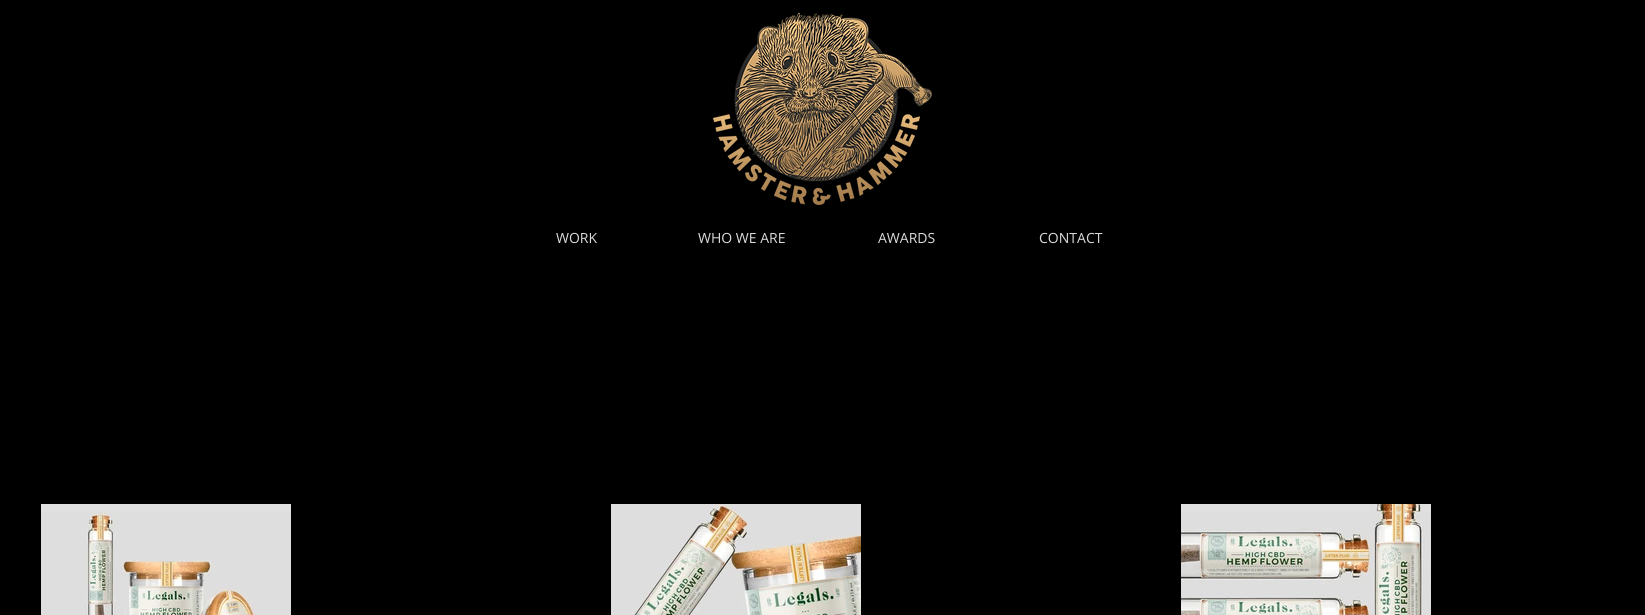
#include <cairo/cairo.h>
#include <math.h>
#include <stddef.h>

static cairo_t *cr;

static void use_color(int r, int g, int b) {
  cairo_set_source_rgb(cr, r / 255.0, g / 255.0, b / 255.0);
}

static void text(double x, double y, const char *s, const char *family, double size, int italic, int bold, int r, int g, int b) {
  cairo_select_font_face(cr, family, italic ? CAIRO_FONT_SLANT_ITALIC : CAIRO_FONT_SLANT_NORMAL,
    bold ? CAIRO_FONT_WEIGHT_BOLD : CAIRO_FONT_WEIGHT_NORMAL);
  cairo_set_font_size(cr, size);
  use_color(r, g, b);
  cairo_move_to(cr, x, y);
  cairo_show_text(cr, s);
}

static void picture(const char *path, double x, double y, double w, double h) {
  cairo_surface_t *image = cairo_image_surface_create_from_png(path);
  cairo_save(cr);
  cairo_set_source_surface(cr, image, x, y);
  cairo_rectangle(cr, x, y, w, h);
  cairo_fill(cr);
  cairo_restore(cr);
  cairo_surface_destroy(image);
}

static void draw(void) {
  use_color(0, 0, 0);
  cairo_paint(cr);
  picture("img_01.png", 713, 13, 219, 192);
  picture("img_02.png", 41, 504, 250, 111);
  picture("img_03.png", 611, 504, 250, 111);
  picture("img_04.png", 1181, 504, 250, 111);
  text(556, 243, "WORK", "Open Sans", 14, 0, 0, 219, 219, 219);
  text(698, 243, "WHO WE ARE", "Open Sans", 14, 0, 0, 219, 219, 219);
  text(878, 243, "AWARDS", "Open Sans", 14, 0, 0, 219, 219, 219);
  text(1039, 243, "CONTACT", "Open Sans", 14, 0, 0, 219, 219, 219);
}

int main(void) {
  cairo_surface_t *surface = cairo_image_surface_create(CAIRO_FORMAT_RGB24, 1645, 615);
  cr = cairo_create(surface);
  cairo_font_options_t *options = cairo_font_options_create();
  cairo_font_options_set_hint_metrics(options, CAIRO_HINT_METRICS_OFF);
  cairo_font_options_set_hint_style(options, CAIRO_HINT_STYLE_NONE);
  cairo_set_font_options(cr, options);
  cairo_set_miter_limit(cr, 4);
  draw();
  cairo_surface_write_to_png(surface, "out.png");
  cairo_font_options_destroy(options);
  cairo_destroy(cr);
  cairo_surface_destroy(surface);
  return 0;
}
